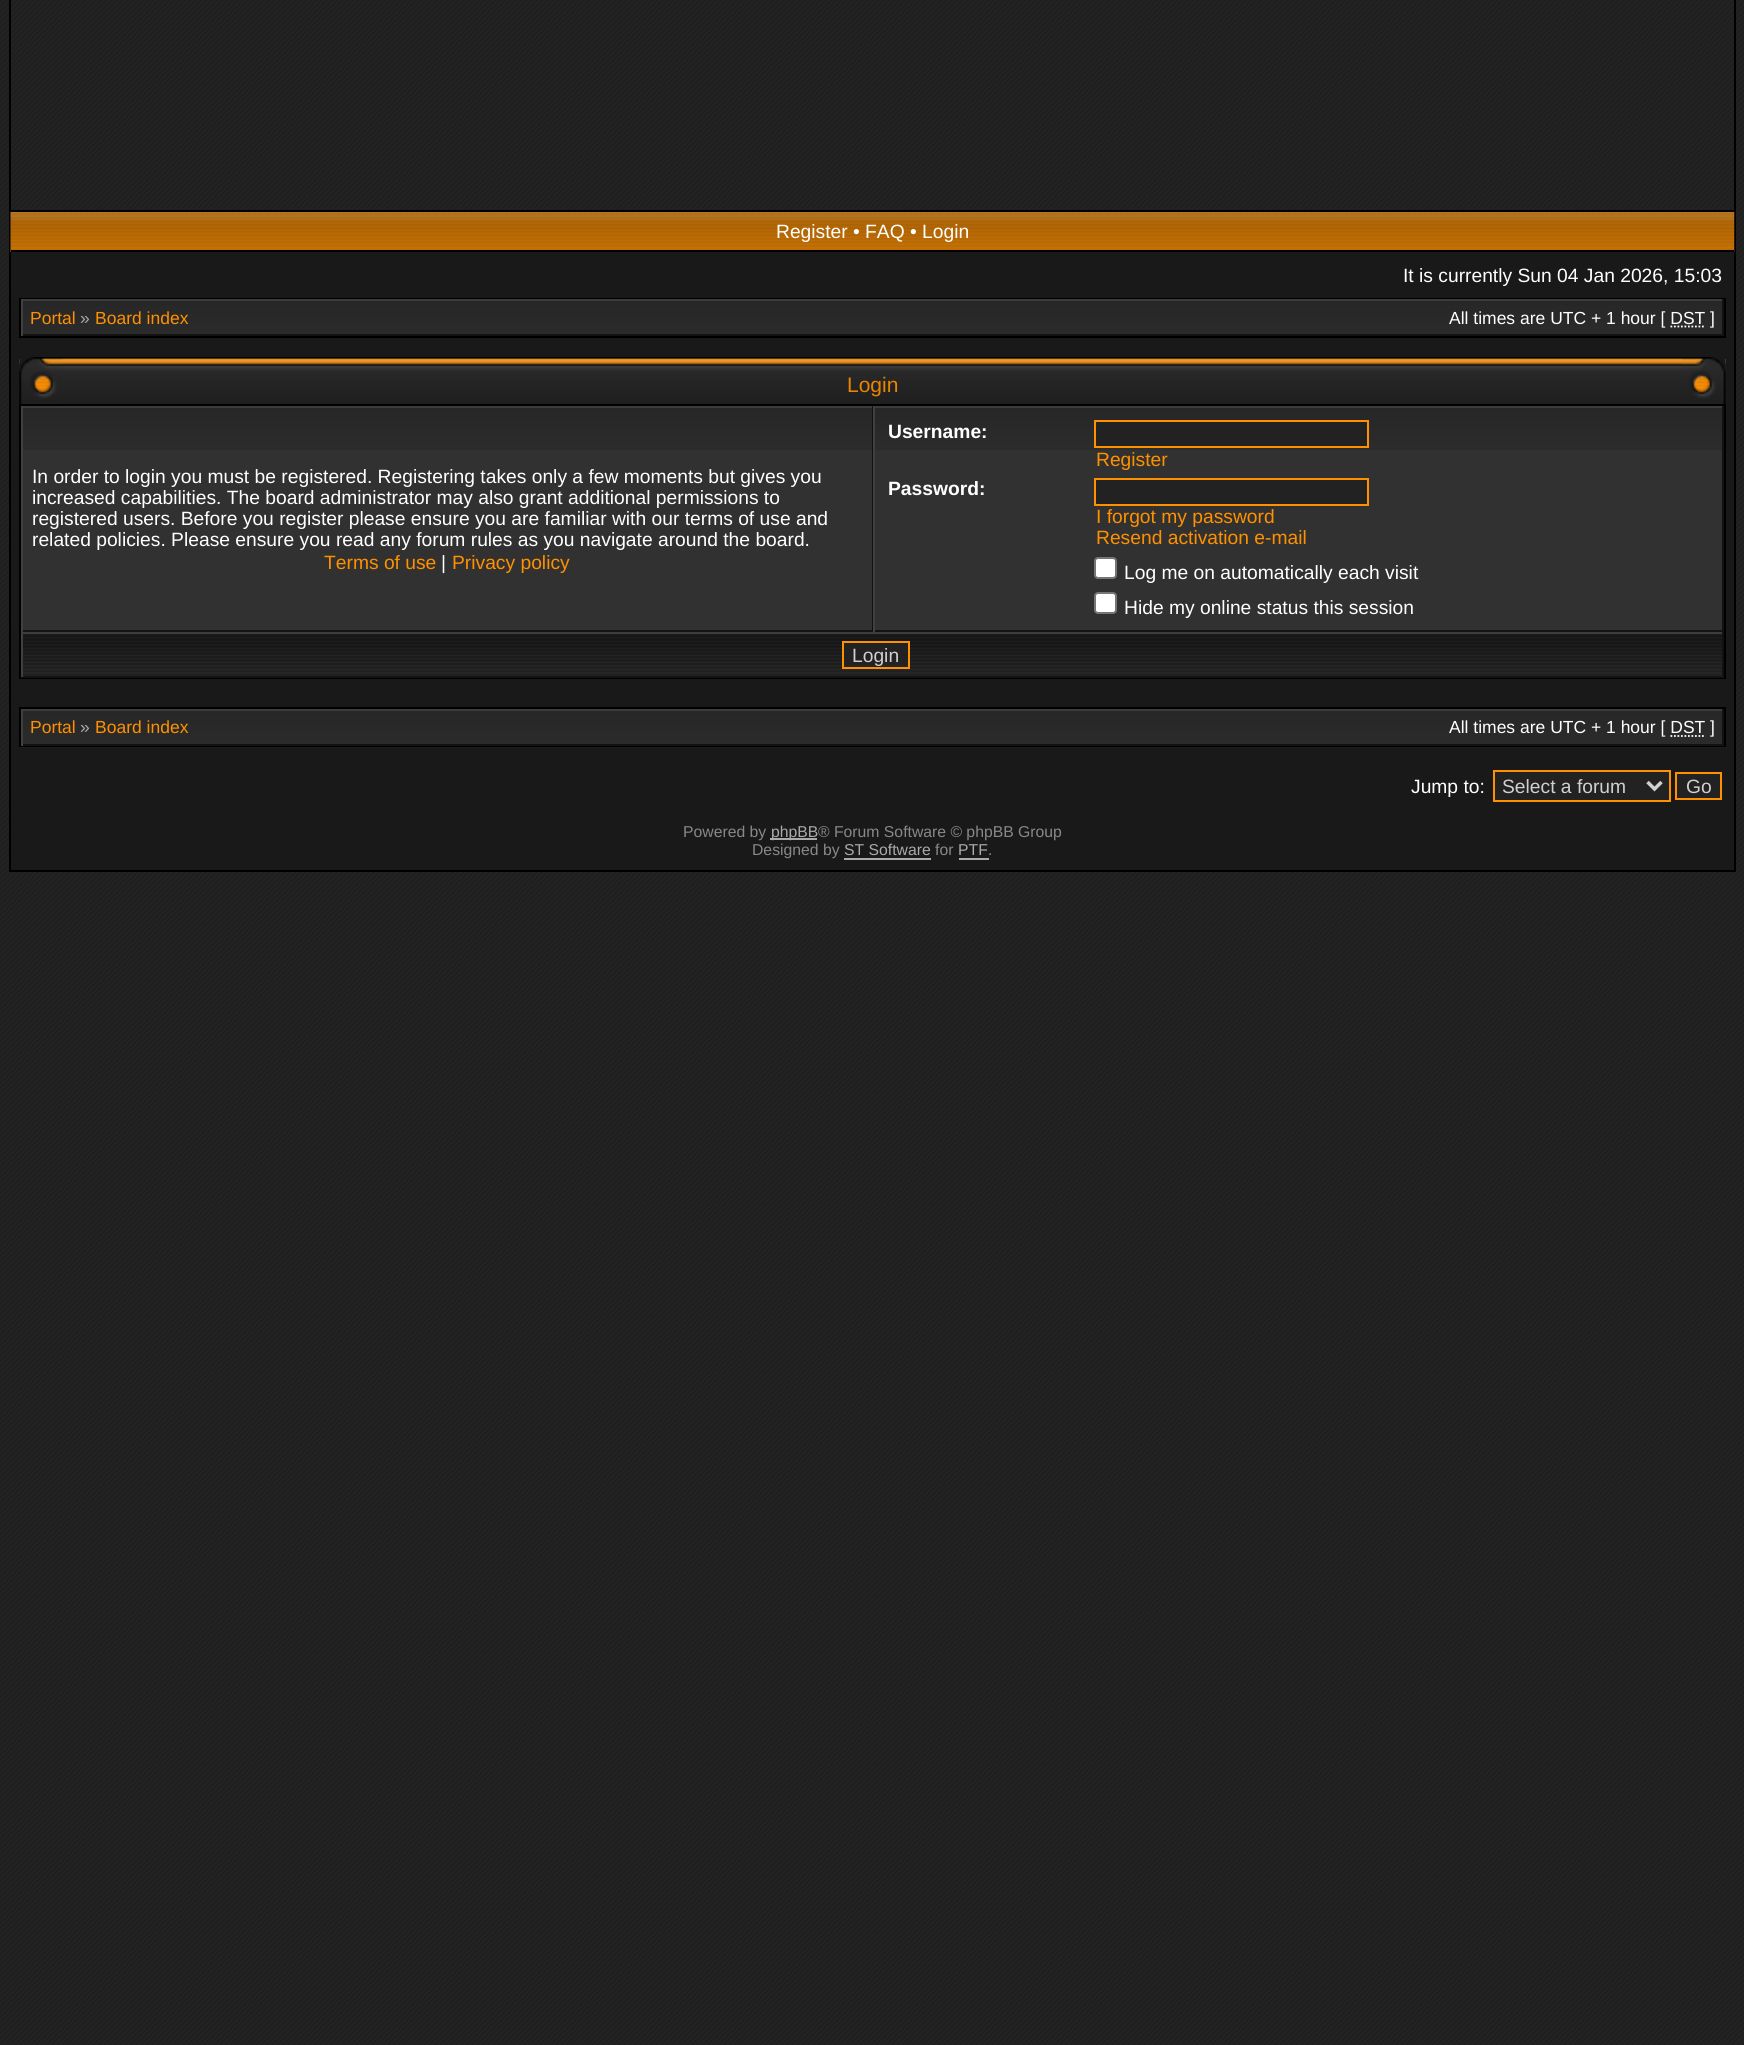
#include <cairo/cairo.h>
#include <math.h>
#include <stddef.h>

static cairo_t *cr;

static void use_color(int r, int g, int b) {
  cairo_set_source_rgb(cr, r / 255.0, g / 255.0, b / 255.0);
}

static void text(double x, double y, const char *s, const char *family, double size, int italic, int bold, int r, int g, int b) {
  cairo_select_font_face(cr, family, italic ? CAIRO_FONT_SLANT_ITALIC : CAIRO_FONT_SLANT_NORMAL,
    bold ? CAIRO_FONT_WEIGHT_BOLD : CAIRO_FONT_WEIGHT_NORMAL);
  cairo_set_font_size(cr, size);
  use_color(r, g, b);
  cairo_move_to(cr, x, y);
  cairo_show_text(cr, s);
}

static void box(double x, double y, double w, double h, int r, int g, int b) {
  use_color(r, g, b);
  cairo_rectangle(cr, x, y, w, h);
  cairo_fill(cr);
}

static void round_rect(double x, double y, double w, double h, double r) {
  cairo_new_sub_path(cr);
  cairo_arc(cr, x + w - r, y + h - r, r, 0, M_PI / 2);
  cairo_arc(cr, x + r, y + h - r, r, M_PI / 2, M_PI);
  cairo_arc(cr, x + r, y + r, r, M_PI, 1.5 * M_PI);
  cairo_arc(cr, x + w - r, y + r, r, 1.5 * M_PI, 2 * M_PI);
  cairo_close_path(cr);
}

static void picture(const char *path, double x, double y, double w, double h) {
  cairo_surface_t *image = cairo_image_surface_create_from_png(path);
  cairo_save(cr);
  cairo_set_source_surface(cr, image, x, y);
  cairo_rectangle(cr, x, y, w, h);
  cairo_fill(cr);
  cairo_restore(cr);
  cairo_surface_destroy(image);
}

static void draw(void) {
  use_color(255, 255, 255);
  cairo_paint(cr);
  picture("img_01.png", 0, 0, 1744, 2045);
  box(1734, 0, 2, 872, 0, 0, 0);
  box(9, 870, 1727, 2, 0, 0, 0);
  box(9, 0, 2, 872, 0, 0, 0);
  picture("img_02.png", 10, 211, 1725, 41);
  box(11, 210, 1723, 2, 0, 0, 0);
  box(11, 250, 1723, 2, 0, 0, 0);
  box(11, 252, 1723, 618, 25, 25, 25);
  cairo_rectangle(cr, 20, 299, 1705, 38);
  use_color(0, 0, 0);
  cairo_stroke(cr);
  picture("img_03.png", 23, 301, 1699, 33);
  box(21, 299, 1703, 2, 60, 60, 60);
  box(1722, 299, 2, 37, 18, 18, 18);
  box(21, 334, 1703, 2, 19, 19, 19);
  box(21, 299, 2, 37, 64, 64, 64);
  cairo_new_path(cr);
  cairo_move_to(cr, 1670.5, 326.5);
  cairo_line_to(cr, 1705.5, 326.5);
  use_color(255, 255, 255);
  cairo_set_line_width(cr, 1.8);
  cairo_set_dash(cr, (double[]){1.75, 1.75}, 2, 0);
  cairo_stroke(cr);
  picture("img_04.png", 19, 357, 1707, 47);
  picture("img_05.png", 19, 357, 44, 47);
  picture("img_06.png", 1682, 357, 44, 47);
  cairo_rectangle(cr, 20, 405, 1705, 273);
  use_color(0, 0, 0);
  cairo_set_line_width(cr, 2);
  cairo_set_dash(cr, NULL, 0, 0);
  cairo_stroke(cr);
  box(23, 450, 849, 180, 49, 49, 49);
  picture("img_07.png", 23, 408, 849, 42);
  box(21, 406, 1703, 2, 60, 60, 60);
  box(872, 406, 1, 226, 18, 18, 18);
  box(21, 630, 852, 2, 19, 19, 19);
  box(21, 406, 2, 226, 64, 64, 64);
  box(875, 450, 847, 180, 49, 49, 49);
  picture("img_08.png", 875, 408, 847, 42);
  box(1722, 406, 2, 226, 18, 18, 18);
  box(873, 630, 851, 2, 19, 19, 19);
  box(873, 406, 2, 226, 64, 64, 64);
  use_color(34, 34, 34);
  cairo_rectangle(cr, 1095, 421, 273, 26);
  cairo_fill_preserve(cr);
  use_color(255, 144, 0);
  cairo_stroke(cr);
  use_color(34, 34, 34);
  cairo_rectangle(cr, 1095, 479, 273, 26);
  cairo_fill_preserve(cr);
  use_color(255, 144, 0);
  cairo_stroke(cr);
  use_color(255, 255, 255);
  round_rect(1095, 558, 21, 20, 3);
  cairo_fill_preserve(cr);
  use_color(118, 118, 118);
  cairo_stroke(cr);
  use_color(255, 255, 255);
  round_rect(1095, 593, 21, 20, 3);
  cairo_fill_preserve(cr);
  use_color(118, 118, 118);
  cairo_stroke(cr);
  picture("img_09.png", 23, 634, 1699, 42);
  box(21, 632, 1703, 2, 60, 60, 60);
  box(1722, 632, 2, 45, 18, 18, 18);
  box(21, 676, 1703, 2, 19, 19, 19);
  box(21, 632, 2, 45, 64, 64, 64);
  box(844, 643, 64, 22, 34, 34, 34);
  cairo_rectangle(cr, 843, 642, 66, 26);
  use_color(255, 144, 0);
  cairo_stroke(cr);
  picture("img_10.png", 19, 747, 1707, 1);
  cairo_rectangle(cr, 20, 708, 1705, 38);
  use_color(0, 0, 0);
  cairo_stroke(cr);
  picture("img_11.png", 23, 711, 1699, 33);
  box(21, 709, 1703, 2, 60, 60, 60);
  box(1722, 709, 2, 37, 18, 18, 18);
  box(21, 744, 1703, 2, 19, 19, 19);
  box(21, 709, 2, 37, 64, 64, 64);
  cairo_new_path(cr);
  cairo_move_to(cr, 1670.5, 736);
  cairo_line_to(cr, 1705.5, 736);
  use_color(255, 255, 255);
  cairo_set_line_width(cr, 1.8);
  cairo_set_dash(cr, (double[]){1.75, 1.75}, 2, 0);
  cairo_stroke(cr);
  use_color(34, 34, 34);
  cairo_rectangle(cr, 1494, 771, 176, 30);
  cairo_fill_preserve(cr);
  use_color(255, 144, 0);
  cairo_set_line_width(cr, 2);
  cairo_set_dash(cr, NULL, 0, 0);
  cairo_stroke(cr);
  cairo_new_path(cr);
  cairo_move_to(cr, 1647.5, 782);
  cairo_line_to(cr, 1654.5, 789);
  cairo_line_to(cr, 1661.5, 782);
  use_color(208, 208, 208);
  cairo_set_line_width(cr, 3.5);
  cairo_stroke(cr);
  use_color(34, 34, 34);
  cairo_rectangle(cr, 1676, 773, 45, 26);
  cairo_fill_preserve(cr);
  use_color(255, 144, 0);
  cairo_set_line_width(cr, 2);
  cairo_stroke(cr);
  box(770, 838, 47, 2, 170, 170, 170);
  box(844, 858, 87, 2, 170, 170, 170);
  box(959, 858, 30, 2, 170, 170, 170);
  text(776, 238, "Register • FAQ • Login", "Liberation Sans", 19.25, 0, 0, 255, 255, 255);
  text(1403, 282, "It is currently Sun 04 Jan 2026, 15:03", "Liberation Sans", 19.25, 0, 0, 255, 255, 255);
  text(30, 324, "Portal", "Liberation Sans", 17.5, 0, 0, 255, 144, 0);
  text(80, 324, "»", "Liberation Sans", 17.5, 0, 0, 170, 170, 170);
  text(95, 324, "Board index", "Liberation Sans", 17.5, 0, 0, 255, 144, 0);
  text(1449, 324, "All times are UTC + 1 hour [ DST ]", "Liberation Sans", 17.5, 0, 0, 255, 255, 255);
  text(847, 392, "Login", "Liberation Sans", 21, 0, 0, 235, 133, 0);
  text(32, 483, "In order to login you must be registered. Registering takes only a few moments but gives you", "Liberation Sans", 19.25, 0, 0, 255, 255, 255);
  text(32, 504, "increased capabilities. The board administrator may also grant additional permissions to", "Liberation Sans", 19.25, 0, 0, 255, 255, 255);
  text(32, 525, "registered users. Before you register please ensure you are familiar with our terms of use and", "Liberation Sans", 19.25, 0, 0, 255, 255, 255);
  text(32, 546, "related policies. Please ensure you read any forum rules as you navigate around the board.", "Liberation Sans", 19.25, 0, 0, 255, 255, 255);
  text(324, 569, "Terms of use", "Liberation Sans", 19.25, 0, 0, 255, 144, 0);
  text(441, 569, "|", "Liberation Sans", 19.25, 0, 0, 255, 255, 255);
  text(452, 569, "Privacy policy", "Liberation Sans", 19.25, 0, 0, 255, 144, 0);
  text(888, 438, "Username:", "Liberation Sans", 19.25, 0, 1, 255, 255, 255);
  text(1096, 466, "Register", "Liberation Sans", 19.25, 0, 0, 255, 144, 0);
  text(888, 495, "Password:", "Liberation Sans", 19.25, 0, 1, 255, 255, 255);
  text(1096, 523, "I forgot my password", "Liberation Sans", 19.25, 0, 0, 255, 144, 0);
  text(1096, 544, "Resend activation e-mail", "Liberation Sans", 19.25, 0, 0, 255, 144, 0);
  text(1124, 579, "Log me on automatically each visit", "Liberation Sans", 19.25, 0, 0, 255, 255, 255);
  text(1124, 614, "Hide my online status this session", "Liberation Sans", 19.25, 0, 0, 255, 255, 255);
  text(852, 662, "Login", "Liberation Sans", 19.25, 0, 0, 208, 208, 208);
  text(30, 733, "Portal", "Liberation Sans", 17.5, 0, 0, 255, 144, 0);
  text(80, 733, "»", "Liberation Sans", 17.5, 0, 0, 170, 170, 170);
  text(95, 733, "Board index", "Liberation Sans", 17.5, 0, 0, 255, 144, 0);
  text(1449, 733, "All times are UTC + 1 hour [ DST ]", "Liberation Sans", 17.5, 0, 0, 255, 255, 255);
  text(1411, 793, "Jump to:", "Liberation Sans", 19.25, 0, 0, 255, 255, 255);
  text(1502, 793, "Select a forum", "Liberation Sans", 19.25, 0, 0, 208, 208, 208);
  text(1686, 793, "Go", "Liberation Sans", 19.25, 0, 0, 208, 208, 208);
  text(683, 837, "Powered by", "Liberation Sans", 15.75, 0, 0, 136, 136, 136);
  text(771, 837, "phpBB", "Liberation Sans", 15.75, 0, 0, 170, 170, 170);
  text(818, 837, "® Forum Software © phpBB Group", "Liberation Sans", 15.75, 0, 0, 136, 136, 136);
  text(752, 855, "Designed by", "Liberation Sans", 15.75, 0, 0, 136, 136, 136);
  text(844, 855, "ST Software", "Liberation Sans", 15.75, 0, 0, 170, 170, 170);
  text(935, 855, "for", "Liberation Sans", 15.75, 0, 0, 136, 136, 136);
  text(958, 855, "PTF", "Liberation Sans", 15.75, 0, 0, 170, 170, 170);
  text(988, 855, ".", "Liberation Sans", 15.75, 0, 0, 136, 136, 136);
}

int main(void) {
  cairo_surface_t *surface = cairo_image_surface_create(CAIRO_FORMAT_RGB24, 1744, 2045);
  cr = cairo_create(surface);
  cairo_font_options_t *options = cairo_font_options_create();
  cairo_font_options_set_hint_metrics(options, CAIRO_HINT_METRICS_OFF);
  cairo_font_options_set_hint_style(options, CAIRO_HINT_STYLE_NONE);
  cairo_set_font_options(cr, options);
  cairo_set_miter_limit(cr, 4);
  draw();
  cairo_surface_write_to_png(surface, "out.png");
  cairo_font_options_destroy(options);
  cairo_destroy(cr);
  cairo_surface_destroy(surface);
  return 0;
}
